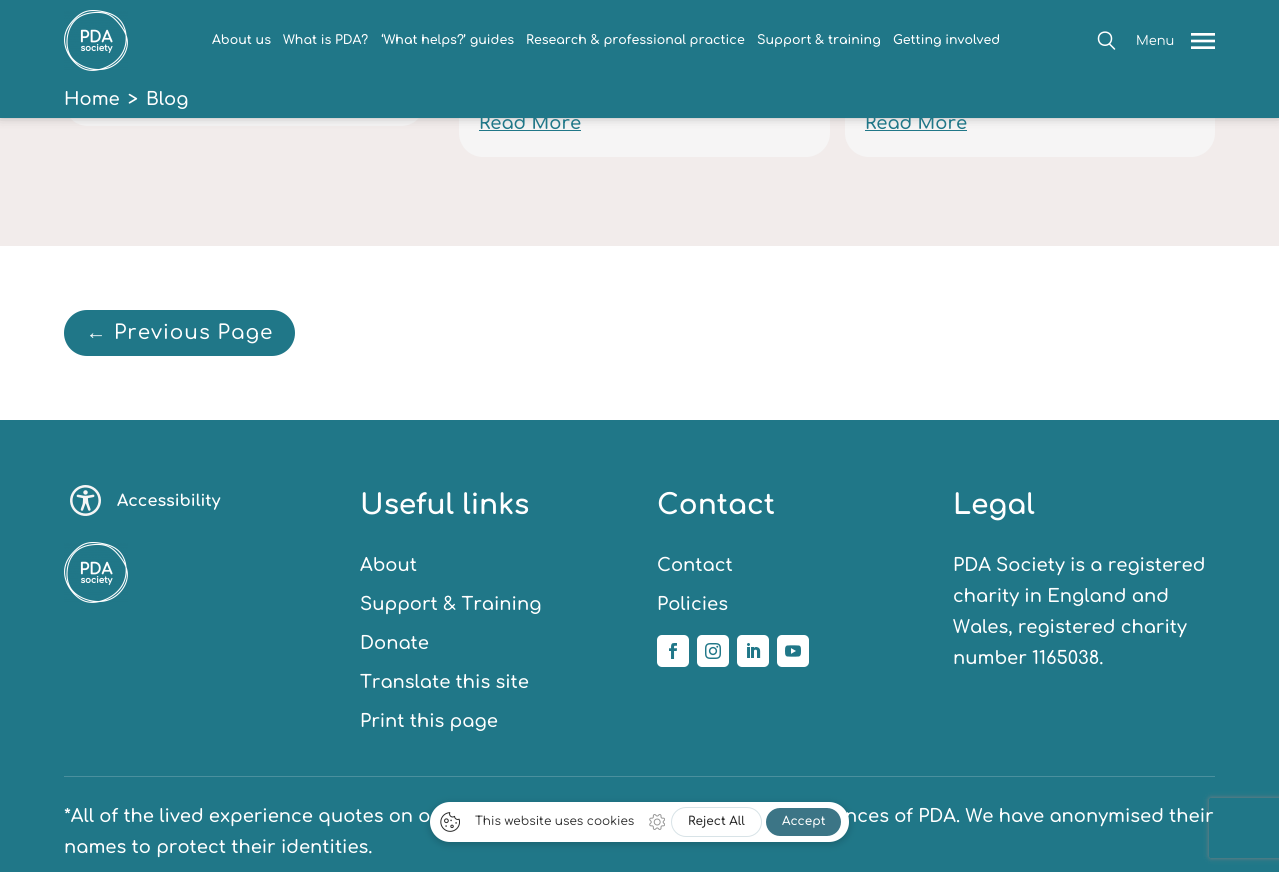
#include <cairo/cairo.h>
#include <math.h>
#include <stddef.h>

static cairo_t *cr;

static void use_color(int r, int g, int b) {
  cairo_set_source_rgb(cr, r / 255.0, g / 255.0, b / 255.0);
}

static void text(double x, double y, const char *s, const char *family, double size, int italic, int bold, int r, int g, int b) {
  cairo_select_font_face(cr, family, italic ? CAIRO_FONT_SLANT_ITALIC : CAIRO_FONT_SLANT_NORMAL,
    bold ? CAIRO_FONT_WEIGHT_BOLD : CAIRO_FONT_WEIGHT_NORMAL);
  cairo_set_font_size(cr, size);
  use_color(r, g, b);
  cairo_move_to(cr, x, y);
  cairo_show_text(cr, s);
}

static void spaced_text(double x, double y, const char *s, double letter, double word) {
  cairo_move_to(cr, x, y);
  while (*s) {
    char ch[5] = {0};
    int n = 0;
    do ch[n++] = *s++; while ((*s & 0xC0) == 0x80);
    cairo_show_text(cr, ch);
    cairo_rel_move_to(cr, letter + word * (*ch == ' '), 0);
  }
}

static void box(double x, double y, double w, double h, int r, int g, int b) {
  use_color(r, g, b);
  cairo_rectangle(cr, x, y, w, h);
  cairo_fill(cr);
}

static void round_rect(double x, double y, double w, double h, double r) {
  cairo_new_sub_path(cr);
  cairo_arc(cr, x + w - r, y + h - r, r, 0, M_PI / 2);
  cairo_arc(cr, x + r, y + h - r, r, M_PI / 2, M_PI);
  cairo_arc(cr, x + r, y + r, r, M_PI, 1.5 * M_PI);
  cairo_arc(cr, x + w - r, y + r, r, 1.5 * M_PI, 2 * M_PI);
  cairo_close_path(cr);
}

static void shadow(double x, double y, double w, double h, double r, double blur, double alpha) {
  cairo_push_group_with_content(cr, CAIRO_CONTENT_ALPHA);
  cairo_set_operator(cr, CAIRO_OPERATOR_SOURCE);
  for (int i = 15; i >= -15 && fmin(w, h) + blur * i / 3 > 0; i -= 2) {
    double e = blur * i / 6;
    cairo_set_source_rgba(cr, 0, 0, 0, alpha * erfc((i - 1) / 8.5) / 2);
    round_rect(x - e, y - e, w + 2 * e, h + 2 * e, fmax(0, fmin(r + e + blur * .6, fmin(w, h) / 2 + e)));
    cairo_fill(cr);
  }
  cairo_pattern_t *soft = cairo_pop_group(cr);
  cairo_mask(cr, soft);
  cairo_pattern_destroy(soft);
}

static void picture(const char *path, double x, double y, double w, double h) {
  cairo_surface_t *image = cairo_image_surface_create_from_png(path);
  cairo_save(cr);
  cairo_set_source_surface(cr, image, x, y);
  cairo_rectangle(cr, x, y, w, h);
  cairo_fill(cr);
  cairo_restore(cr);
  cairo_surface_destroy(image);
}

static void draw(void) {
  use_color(255, 255, 255);
  cairo_paint(cr);
  box(0, 118, 1279, 128, 242, 236, 235);
  use_color(246, 245, 245);
  round_rect(64, -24, 361, 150, 24);
  cairo_fill(cr);
  round_rect(459, -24, 371, 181, 24);
  cairo_fill(cr);
  box(479, 130, 102, 1, 32, 119, 136);
  use_color(246, 245, 245);
  round_rect(845, -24, 370, 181, 24);
  cairo_fill(cr);
  box(865, 130, 102, 1, 32, 119, 136);
  use_color(0, 0, 0);
  shadow(0, -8, 1279, 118, 0, 7.5, 0.9);
  box(0, 0, 1279, 118, 32, 119, 136);
  picture("img_01.png", 64, 10, 64, 61);
  cairo_new_path(cr);
  cairo_move_to(cr, 1109.5, 44);
  cairo_line_to(cr, 1114.5, 49);
  cairo_move_to(cr, 1111.5, 38.5);
  cairo_curve_to(cr, 1111.5, 47.5, 1098.5, 47.5, 1098.5, 38.5);
  cairo_curve_to(cr, 1098.5, 30, 1111.5, 30, 1111.5, 38.5);
  cairo_close_path(cr);
  use_color(255, 255, 255);
  cairo_set_line_width(cr, 1.5);
  cairo_set_line_cap(cr, CAIRO_LINE_CAP_ROUND);
  cairo_stroke(cr);
  picture("img_02.png", 1191, 33, 24, 16);
  use_color(32, 119, 136);
  round_rect(65, 311, 229, 44, 22);
  cairo_fill_preserve(cr);
  cairo_set_line_width(cr, 2);
  cairo_set_line_cap(cr, CAIRO_LINE_CAP_BUTT);
  cairo_stroke(cr);
  box(0, 420, 1279, 452, 32, 119, 136);
  picture("img_03.png", 70, 485, 31, 31);
  picture("img_01.png", 64, 542, 64, 61);
  use_color(255, 255, 255);
  round_rect(657, 635, 32, 32, 5);
  cairo_fill(cr);
  picture("img_04.png", 669, 643, 8, 16);
  round_rect(697, 635, 32, 32, 5);
  cairo_fill(cr);
  picture("img_05.png", 705, 643, 16, 16);
  round_rect(737, 635, 32, 32, 5);
  cairo_fill(cr);
  picture("img_06.png", 747, 643, 14, 15);
  round_rect(777, 635, 32, 32, 5);
  cairo_fill(cr);
  picture("img_07.png", 785, 645, 16, 12);
  box(64, 776, 1151, 1, 75, 144, 158);
  cairo_save(cr);
  cairo_set_fill_rule(cr, CAIRO_FILL_RULE_EVEN_ODD);
  cairo_new_path(cr);
  cairo_move_to(cr, 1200, 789);
  cairo_line_to(cr, 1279, 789);
  cairo_line_to(cr, 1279, 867);
  cairo_line_to(cr, 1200, 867);
  cairo_close_path(cr);
  cairo_move_to(cr, 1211, 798);
  cairo_line_to(cr, 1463, 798);
  cairo_curve_to(cr, 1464, 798, 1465, 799, 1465, 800);
  cairo_line_to(cr, 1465, 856);
  cairo_curve_to(cr, 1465, 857, 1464, 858, 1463, 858);
  cairo_line_to(cr, 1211, 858);
  cairo_curve_to(cr, 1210, 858, 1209, 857, 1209, 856);
  cairo_line_to(cr, 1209, 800);
  cairo_curve_to(cr, 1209, 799, 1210, 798, 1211, 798);
  cairo_close_path(cr);
  cairo_clip(cr);
  use_color(128, 128, 128);
  shadow(1209, 798, 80, 60, 2, 2.5, 1);
  cairo_restore(cr);
  use_color(0, 0, 0);
  shadow(430, 804, 419, 40, 20, 4, 0.2);
  use_color(255, 255, 255);
  round_rect(430, 802, 419, 40, 20);
  cairo_fill(cr);
  picture("img_08.png", 440, 812, 20, 20);
  picture("img_09.png", 649, 814, 16, 16);
  round_rect(671.5, 807.5, 90, 29, 14.5);
  use_color(216, 227, 231);
  cairo_set_line_width(cr, 1);
  cairo_stroke(cr);
  use_color(60, 117, 134);
  round_rect(766, 808, 75, 28, 14);
  cairo_fill(cr);
  text(212, 44, "About us", "Comfortaa SemiBold", 12.6, 0, 0, 255, 255, 255);
  text(283, 44, "What is PDA?", "Comfortaa SemiBold", 12.6, 0, 0, 255, 255, 255);
  text(381, 44, "‘What helps?’ guides", "Comfortaa SemiBold", 12.6, 0, 0, 255, 255, 255);
  text(526, 44, "Research & professional practice", "Comfortaa SemiBold", 12.6, 0, 0, 255, 255, 255);
  text(757, 44, "Support & training", "Comfortaa SemiBold", 12.6, 0, 0, 255, 255, 255);
  text(893, 44, "Getting involved", "Comfortaa SemiBold", 12.6, 0, 0, 255, 255, 255);
  text(1136, 45, "Menu", "Comfortaa", 13, 0, 0, 255, 255, 255);
  text(64, 105, "Home", "Comfortaa SemiBold", 18, 0, 0, 255, 255, 255);
  text(128, 105, ">", "Comfortaa SemiBold", 18, 0, 0, 255, 255, 255);
  text(146, 105, "Blog", "Comfortaa SemiBold", 18, 0, 0, 255, 255, 255);
  text(479, 129, "Read More", "Comfortaa SemiBold", 18, 0, 0, 32, 119, 136);
  text(865, 129, "Read More", "Comfortaa SemiBold", 18, 0, 0, 32, 119, 136);
  cairo_select_font_face(cr, "Liberation Serif", CAIRO_FONT_SLANT_NORMAL, CAIRO_FONT_WEIGHT_NORMAL);
  cairo_set_font_size(cr, 20);
  use_color(255, 255, 255);
  spaced_text(86, 339, "←", 1, 0);
  cairo_select_font_face(cr, "Comfortaa Medium", CAIRO_FONT_SLANT_NORMAL, CAIRO_FONT_WEIGHT_NORMAL);
  spaced_text(114, 339, "Previous Page", 1, 0);
  text(117, 506, "Accessibility", "Comfortaa", 16, 0, 1, 255, 255, 255);
  text(360, 514, "Useful links", "Comfortaa", 28, 0, 1, 255, 255, 255);
  text(360, 571, "About", "Comfortaa SemiBold", 18, 0, 0, 255, 255, 255);
  text(360, 610, "Support & Training", "Comfortaa SemiBold", 18, 0, 0, 255, 255, 255);
  text(360, 649, "Donate", "Comfortaa SemiBold", 18, 0, 0, 255, 255, 255);
  text(360, 688, "Translate this site", "Comfortaa SemiBold", 18, 0, 0, 255, 255, 255);
  text(360, 727, "Print this page", "Comfortaa SemiBold", 18, 0, 0, 255, 255, 255);
  text(657, 514, "Contact", "Comfortaa", 28, 0, 1, 255, 255, 255);
  text(657, 571, "Contact", "Comfortaa SemiBold", 18, 0, 0, 255, 255, 255);
  text(657, 610, "Policies", "Comfortaa SemiBold", 18, 0, 0, 255, 255, 255);
  text(953, 514, "Legal", "Comfortaa", 28, 0, 1, 255, 255, 255);
  text(953, 571, "PDA Society is a registered", "Comfortaa SemiBold", 18, 0, 0, 255, 255, 255);
  text(953, 602, "charity in England and", "Comfortaa SemiBold", 18, 0, 0, 255, 255, 255);
  text(953, 633, "Wales, registered charity", "Comfortaa SemiBold", 18, 0, 0, 255, 255, 255);
  text(953, 664, "number 1165038.", "Comfortaa SemiBold", 18, 0, 0, 255, 255, 255);
  text(64, 822, "*All of the lived experience quotes on o", "Comfortaa SemiBold", 18, 0, 0, 255, 255, 255);
  text(845, 822, "nces of PDA. We have anonymised their", "Comfortaa SemiBold", 18, 0, 0, 255, 255, 255);
  text(64, 853, "names to protect their identities.", "Comfortaa SemiBold", 18, 0, 0, 255, 255, 255);
  text(475, 825, "This website uses cookies", "Comfortaa", 12, 0, 0, 42, 42, 42);
  text(688, 825, "Reject All", "Comfortaa SemiBold", 12, 0, 0, 42, 42, 42);
  text(782, 825, "Accept", "Comfortaa SemiBold", 12, 0, 0, 255, 255, 255);
}

int main(void) {
  cairo_surface_t *surface = cairo_image_surface_create(CAIRO_FORMAT_RGB24, 1279, 872);
  cr = cairo_create(surface);
  cairo_font_options_t *options = cairo_font_options_create();
  cairo_font_options_set_hint_metrics(options, CAIRO_HINT_METRICS_OFF);
  cairo_font_options_set_hint_style(options, CAIRO_HINT_STYLE_NONE);
  cairo_set_font_options(cr, options);
  cairo_set_miter_limit(cr, 4);
  draw();
  cairo_surface_write_to_png(surface, "out.png");
  cairo_font_options_destroy(options);
  cairo_destroy(cr);
  cairo_surface_destroy(surface);
  return 0;
}
